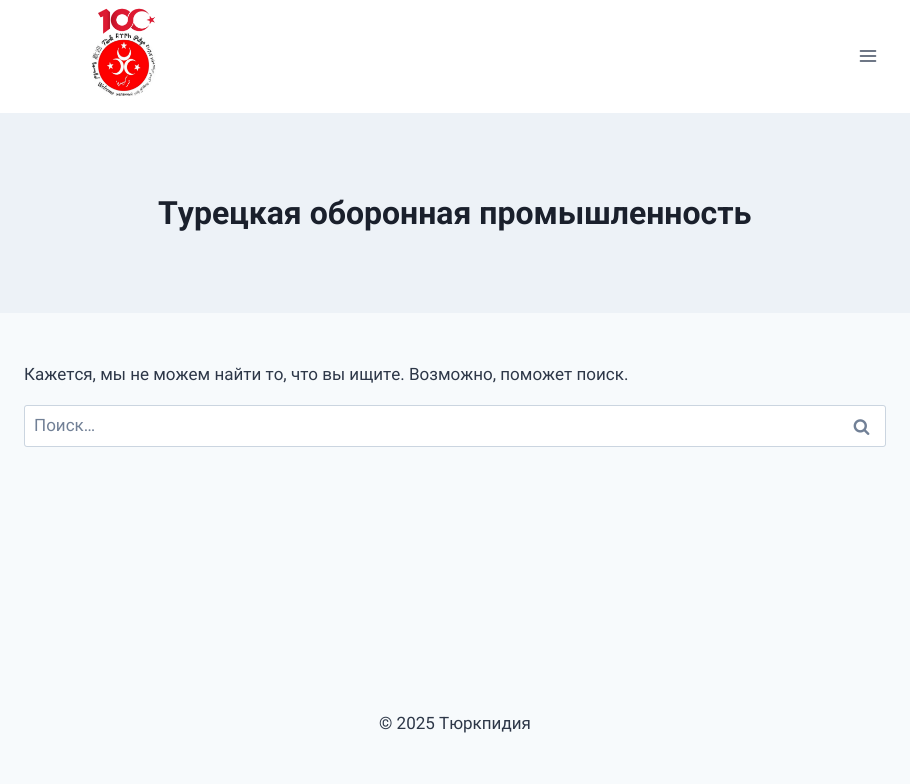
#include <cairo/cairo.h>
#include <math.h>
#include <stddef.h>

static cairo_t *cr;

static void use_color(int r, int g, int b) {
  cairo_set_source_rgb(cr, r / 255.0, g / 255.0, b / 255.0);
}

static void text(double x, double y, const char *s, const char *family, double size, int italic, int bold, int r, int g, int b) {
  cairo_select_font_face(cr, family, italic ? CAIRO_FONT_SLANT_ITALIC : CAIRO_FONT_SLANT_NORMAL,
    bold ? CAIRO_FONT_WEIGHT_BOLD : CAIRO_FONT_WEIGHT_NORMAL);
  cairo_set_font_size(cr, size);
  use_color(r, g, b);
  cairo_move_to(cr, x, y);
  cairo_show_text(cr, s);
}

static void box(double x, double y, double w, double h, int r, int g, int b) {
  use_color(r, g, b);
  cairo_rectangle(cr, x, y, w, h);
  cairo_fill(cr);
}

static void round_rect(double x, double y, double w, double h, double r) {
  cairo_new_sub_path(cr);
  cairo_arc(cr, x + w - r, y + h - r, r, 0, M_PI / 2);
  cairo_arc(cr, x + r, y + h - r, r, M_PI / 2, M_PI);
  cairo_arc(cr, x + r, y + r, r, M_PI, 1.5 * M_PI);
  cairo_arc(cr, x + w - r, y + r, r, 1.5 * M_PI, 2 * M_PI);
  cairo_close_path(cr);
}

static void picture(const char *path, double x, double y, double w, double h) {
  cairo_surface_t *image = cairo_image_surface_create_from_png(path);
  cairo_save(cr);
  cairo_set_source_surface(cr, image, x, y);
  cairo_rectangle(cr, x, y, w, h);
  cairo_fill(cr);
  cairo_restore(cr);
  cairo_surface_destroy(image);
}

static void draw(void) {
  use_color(247, 250, 252);
  cairo_paint(cr);
  box(0, 0, 910, 113, 255, 255, 255);
  picture("img_01.png", 91, 8, 65, 88);
  picture("img_02.png", 859, 50, 18, 12);
  box(0, 113, 910, 200, 237, 242, 247);
  use_color(255, 255, 255);
  round_rect(24.5, 405.5, 861, 41, 2.5);
  cairo_fill_preserve(cr);
  use_color(203, 213, 224);
  cairo_set_line_width(cr, 1);
  cairo_stroke(cr);
  picture("img_03.png", 853, 419, 17, 16);
  text(158, 224, "Турецкая оборонная промышленность", "Roboto", 32, 0, 1, 26, 32, 44);
  text(24, 380, "Кажется, мы не можем найти то, что вы ищите. Возможно, поможет поиск.", "Roboto", 17, 0, 0, 45, 55, 72);
  text(34, 431, "Поиск…", "Roboto", 17, 0, 0, 113, 128, 150);
  text(379, 729, "© 2025 Тюркпидия", "Roboto", 17, 0, 0, 45, 55, 72);
}

int main(void) {
  cairo_surface_t *surface = cairo_image_surface_create(CAIRO_FORMAT_RGB24, 910, 784);
  cr = cairo_create(surface);
  cairo_font_options_t *options = cairo_font_options_create();
  cairo_font_options_set_hint_metrics(options, CAIRO_HINT_METRICS_OFF);
  cairo_font_options_set_hint_style(options, CAIRO_HINT_STYLE_NONE);
  cairo_set_font_options(cr, options);
  cairo_set_miter_limit(cr, 4);
  draw();
  cairo_surface_write_to_png(surface, "out.png");
  cairo_font_options_destroy(options);
  cairo_destroy(cr);
  cairo_surface_destroy(surface);
  return 0;
}
